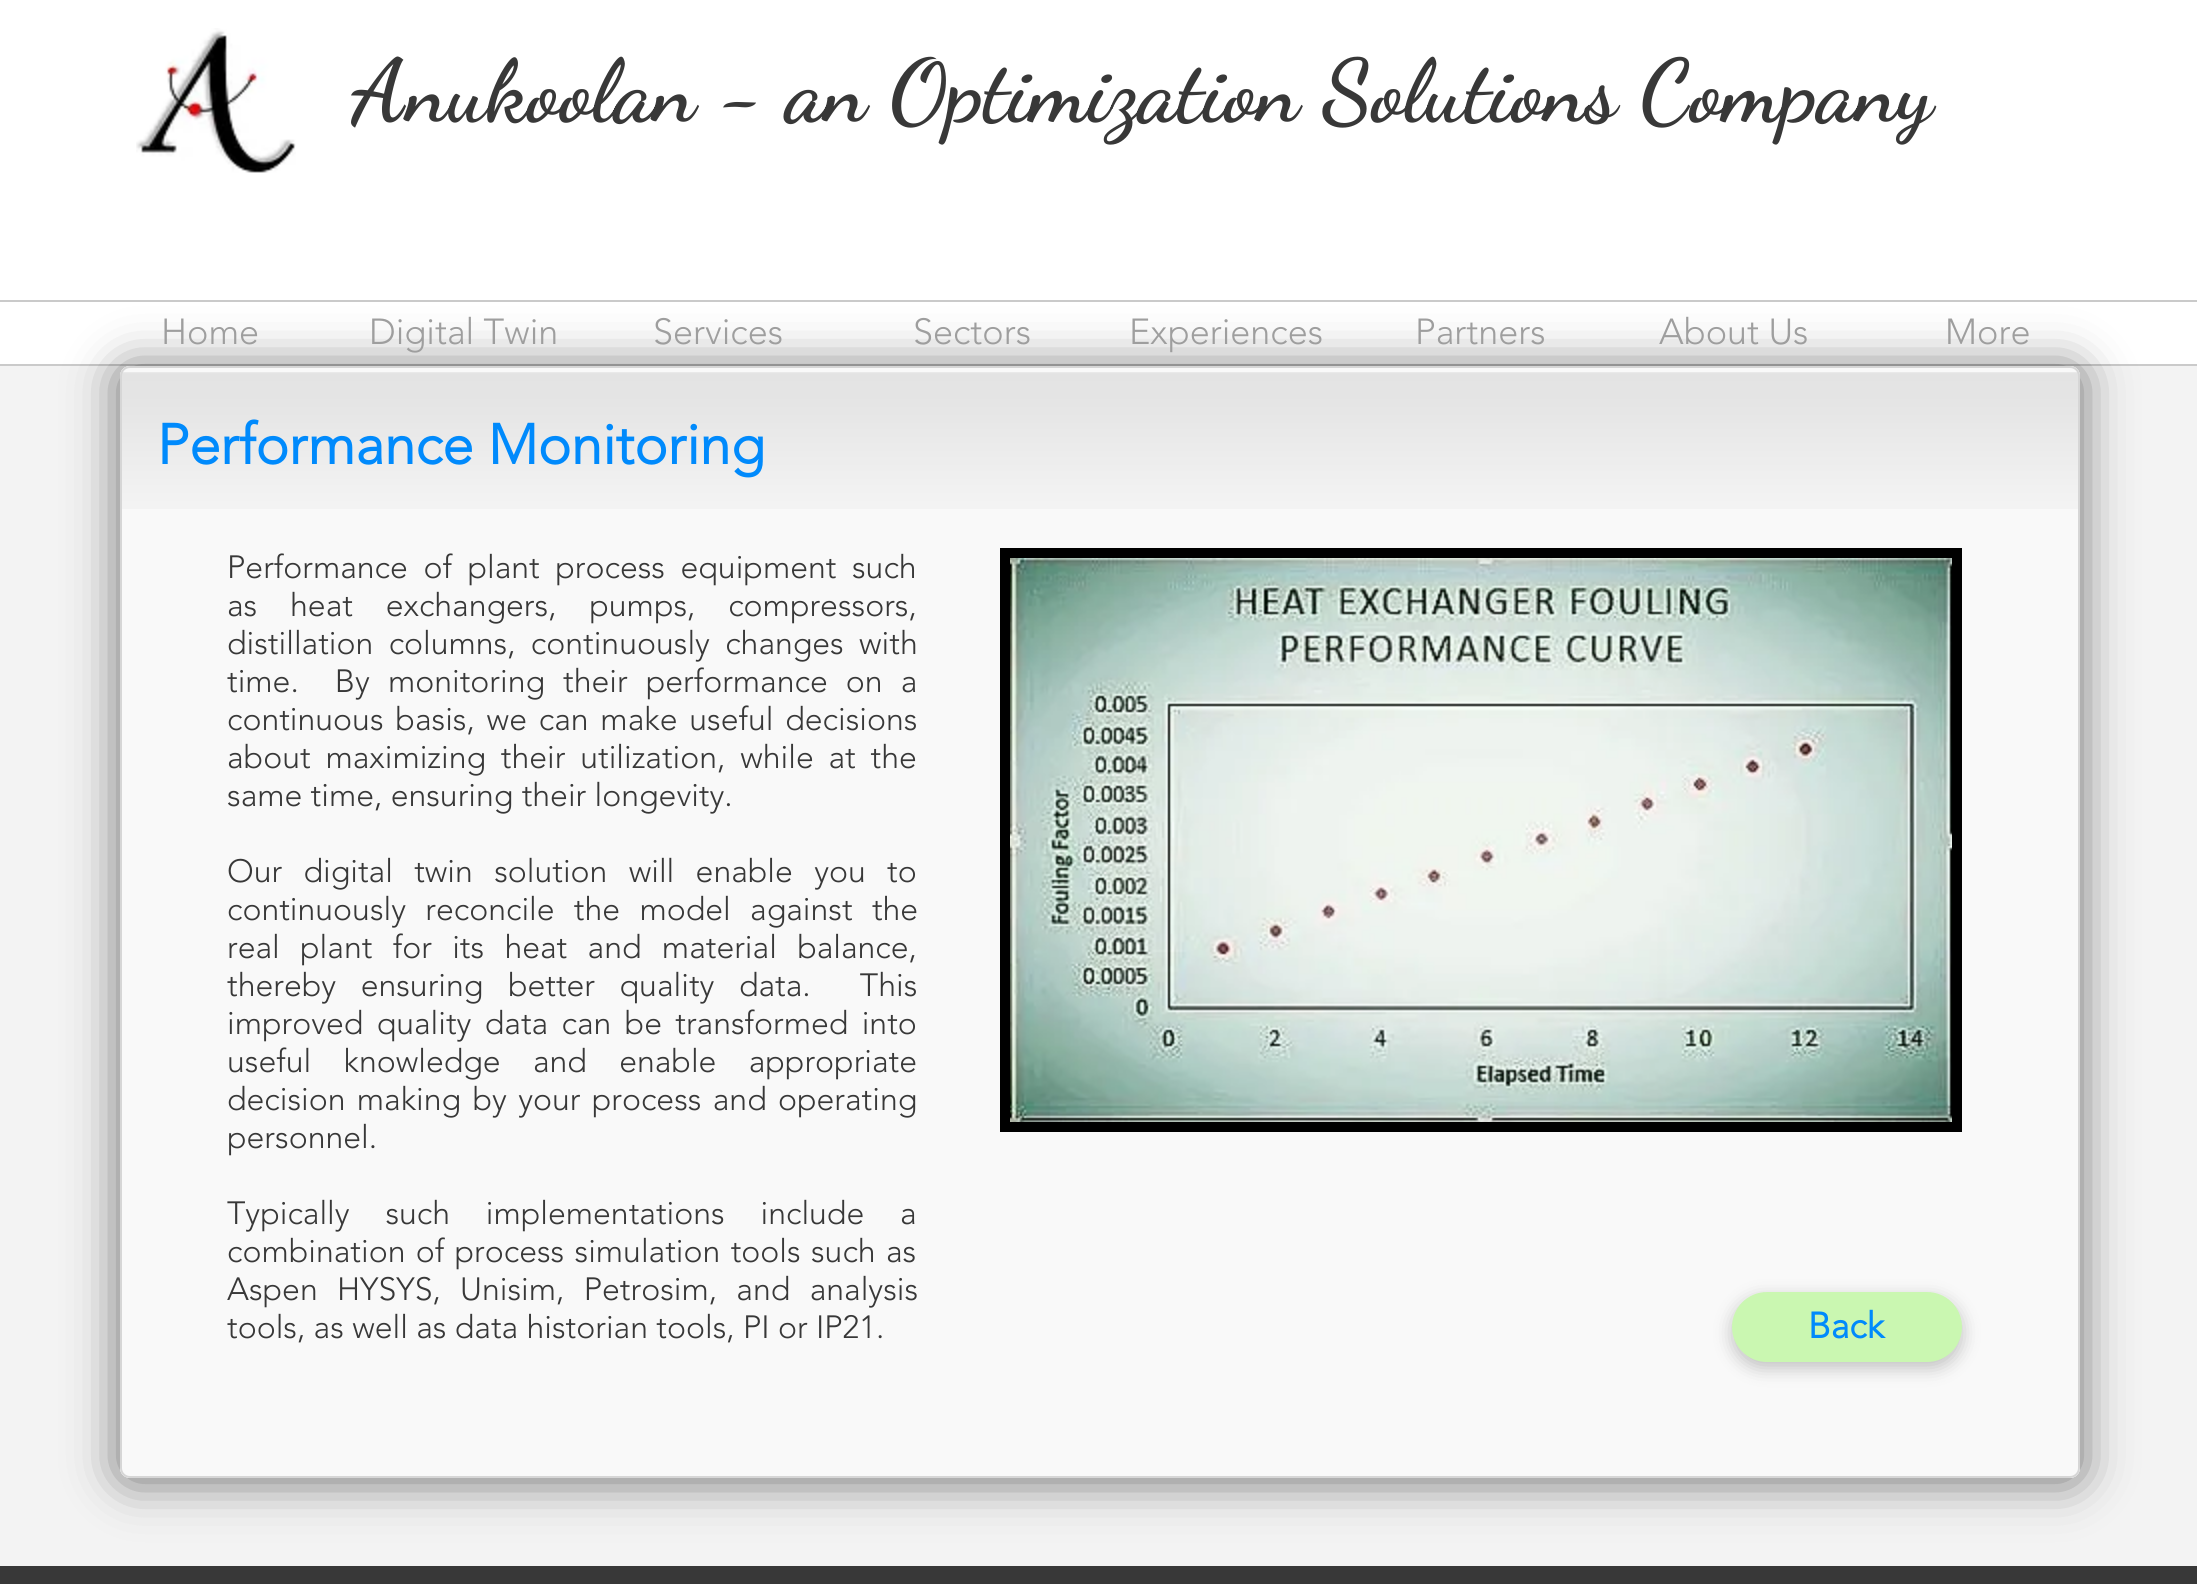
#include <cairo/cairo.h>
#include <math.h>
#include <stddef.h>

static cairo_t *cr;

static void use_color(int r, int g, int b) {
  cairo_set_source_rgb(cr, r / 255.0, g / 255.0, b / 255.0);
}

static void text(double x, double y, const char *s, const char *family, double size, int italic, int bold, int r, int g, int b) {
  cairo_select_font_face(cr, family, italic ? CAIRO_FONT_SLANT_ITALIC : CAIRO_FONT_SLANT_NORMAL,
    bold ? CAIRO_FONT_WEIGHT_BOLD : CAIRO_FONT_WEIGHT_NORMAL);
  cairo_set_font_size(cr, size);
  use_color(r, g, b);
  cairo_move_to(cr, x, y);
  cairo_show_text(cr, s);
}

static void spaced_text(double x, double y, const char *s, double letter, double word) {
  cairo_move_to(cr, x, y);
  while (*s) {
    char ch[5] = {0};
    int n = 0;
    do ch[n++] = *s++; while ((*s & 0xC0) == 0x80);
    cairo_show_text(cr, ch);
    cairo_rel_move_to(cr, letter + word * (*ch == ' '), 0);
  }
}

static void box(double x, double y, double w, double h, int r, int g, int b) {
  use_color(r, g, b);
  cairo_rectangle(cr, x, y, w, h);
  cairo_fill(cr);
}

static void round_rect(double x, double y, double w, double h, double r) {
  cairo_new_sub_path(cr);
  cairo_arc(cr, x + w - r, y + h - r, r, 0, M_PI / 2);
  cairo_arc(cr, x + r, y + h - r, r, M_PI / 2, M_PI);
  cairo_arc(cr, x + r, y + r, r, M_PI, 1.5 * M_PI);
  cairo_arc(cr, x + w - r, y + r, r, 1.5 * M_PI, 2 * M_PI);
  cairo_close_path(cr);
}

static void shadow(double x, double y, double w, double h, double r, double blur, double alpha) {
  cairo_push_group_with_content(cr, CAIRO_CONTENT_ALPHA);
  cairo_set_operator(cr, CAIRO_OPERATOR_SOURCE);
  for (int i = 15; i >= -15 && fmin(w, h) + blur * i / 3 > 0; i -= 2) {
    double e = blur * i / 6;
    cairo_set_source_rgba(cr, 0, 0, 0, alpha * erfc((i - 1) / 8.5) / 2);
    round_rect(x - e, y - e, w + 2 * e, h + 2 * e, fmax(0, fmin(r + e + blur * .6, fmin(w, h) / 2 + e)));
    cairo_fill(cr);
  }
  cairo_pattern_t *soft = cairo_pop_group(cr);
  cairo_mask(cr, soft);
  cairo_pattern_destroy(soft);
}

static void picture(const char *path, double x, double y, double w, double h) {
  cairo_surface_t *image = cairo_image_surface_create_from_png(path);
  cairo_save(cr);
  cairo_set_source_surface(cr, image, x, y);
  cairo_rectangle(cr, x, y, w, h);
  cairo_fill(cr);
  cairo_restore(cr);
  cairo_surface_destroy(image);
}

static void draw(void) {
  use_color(243, 243, 243);
  cairo_paint(cr);
  box(0, 0, 2197, 364, 255, 255, 255);
  picture("img_01.png", 136, 28, 160, 145);
  box(0, 300, 2197, 2, 202, 202, 202);
  box(0, 364, 2197, 2, 202, 202, 202);
  cairo_save(cr);
  cairo_set_fill_rule(cr, CAIRO_FILL_RULE_EVEN_ODD);
  cairo_new_path(cr);
  cairo_move_to(cr, 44, 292);
  cairo_line_to(cr, 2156, 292);
  cairo_line_to(cr, 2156, 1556);
  cairo_line_to(cr, 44, 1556);
  cairo_close_path(cr);
  cairo_move_to(cr, 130, 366);
  cairo_line_to(cr, 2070, 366);
  cairo_curve_to(cr, 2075.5, 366, 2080, 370.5, 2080, 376);
  cairo_line_to(cr, 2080, 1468);
  cairo_curve_to(cr, 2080, 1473.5, 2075.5, 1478, 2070, 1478);
  cairo_line_to(cr, 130, 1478);
  cairo_curve_to(cr, 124.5, 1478, 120, 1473.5, 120, 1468);
  cairo_line_to(cr, 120, 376);
  cairo_curve_to(cr, 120, 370.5, 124.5, 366, 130, 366);
  cairo_close_path(cr);
  cairo_clip(cr);
  use_color(0, 0, 0);
  shadow(120, 368, 1960, 1112, 10, 25, 0.55);
  cairo_restore(cr);
  cairo_set_source_rgba(cr, 1, 1, 1, 0.51);
  round_rect(120, 366, 1960, 1112, 10);
  cairo_fill(cr);
  picture("img_02.png", 120, 372, 1960, 137);
  round_rect(121, 367, 1958, 1110, 9);
  use_color(214, 214, 214);
  cairo_stroke(cr);
  box(1000, 548, 962, 584, 0, 0, 0);
  picture("img_03.png", 1010, 558, 942, 564);
  use_color(0, 0, 0);
  shadow(1732, 1298, 230, 70, 35, 9, 0.23);
  use_color(202, 247, 177);
  round_rect(1732, 1292, 230, 70, 35);
  cairo_fill(cr);
  box(0, 1566, 2197, 18, 56, 56, 56);
  text(351, 120, "Anukoolan - an Optimization Solutions Company", "Dancing Script", 88, 0, 1, 56, 56, 56);
  text(161, 344, "Home", "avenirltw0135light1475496 Light", 36, 0, 0, 158, 158, 158);
  text(369, 344, "Digital Twin", "avenirltw0135light1475496 Light", 36, 0, 0, 158, 158, 158);
  text(653, 344, "Services", "avenirltw0135light1475496 Light", 36, 0, 0, 158, 158, 158);
  text(913, 344, "Sectors", "avenirltw0135light1475496 Light", 36, 0, 0, 158, 158, 158);
  text(1129, 344, "Experiences", "avenirltw0135light1475496 Light", 36, 0, 0, 158, 158, 158);
  text(1415, 344, "Partners", "avenirltw0135light1475496 Light", 36, 0, 0, 158, 158, 158);
  text(1659, 344, "About Us", "avenirltw0135light1475496 Light", 36, 0, 0, 158, 158, 158);
  text(1945, 344, "More", "avenirltw0135light1475496 Light", 36, 0, 0, 158, 158, 158);
  text(157, 464, "Performance Monitoring", "avenirltw0135light1475496", 56, 0, 1, 0, 138, 252);
  cairo_select_font_face(cr, "avenirltw0135light1475496 Light", CAIRO_FONT_SLANT_NORMAL, CAIRO_FONT_WEIGHT_NORMAL);
  cairo_set_font_size(cr, 32);
  use_color(56, 56, 56);
  spaced_text(227, 578, "Performance of plant process equipment such", 0, 7.25);
  spaced_text(227, 616, "as heat exchangers, pumps, compressors,", 0, 24.5);
  spaced_text(227, 654, "distillation columns, continuously changes with", 0, 7);
  spaced_text(227, 692, "time.  By monitoring their performance on a", 0, 9.75);
  spaced_text(227, 730, "continuous basis, we can make useful decisions", 0, 3.5);
  spaced_text(227, 768, "about maximizing their utilization, while at the", 0, 6.5);
  text(227, 806, "same time, ensuring their longevity.", "avenirltw0135light1475496 Light", 32, 0, 0, 56, 56, 56);
  spaced_text(227, 882, "Our digital twin solution will enable you to", 0, 13);
  spaced_text(227, 920, "continuously reconcile the model against the", 0, 11);
  spaced_text(227, 958, "real plant for its heat and material balance,", 0, 12);
  spaced_text(227, 996, "thereby ensuring better quality data.  This", 0, 16.25);
  spaced_text(227, 1034, "improved quality data can be transformed into", 0, 5);
  spaced_text(227, 1072, "useful knowledge and enable appropriate", 0, 24);
  spaced_text(227, 1110, "decision making by your process and operating", 0, 3);
  text(227, 1148, "personnel.", "avenirltw0135light1475496 Light", 32, 0, 0, 56, 56, 56);
  spaced_text(227, 1224, "Typically such implementations include a", 0, 27.5);
  spaced_text(227, 1262, "combination of process simulation tools such as", 0, 2);
  spaced_text(227, 1300, "Aspen HYSYS, Unisim, Petrosim, and analysis", 0, 11);
  text(227, 1338, "tools, as well as data historian tools, PI or IP21.", "avenirltw0135light1475496 Light", 32, 0, 0, 56, 56, 56);
  text(1808, 1338, "Back", "avenirltw0135light1475496", 36, 0, 1, 0, 138, 252);
}

int main(void) {
  cairo_surface_t *surface = cairo_image_surface_create(CAIRO_FORMAT_RGB24, 2197, 1584);
  cr = cairo_create(surface);
  cairo_font_options_t *options = cairo_font_options_create();
  cairo_font_options_set_hint_metrics(options, CAIRO_HINT_METRICS_OFF);
  cairo_font_options_set_hint_style(options, CAIRO_HINT_STYLE_NONE);
  cairo_set_font_options(cr, options);
  cairo_set_miter_limit(cr, 4);
  draw();
  cairo_surface_write_to_png(surface, "out.png");
  cairo_font_options_destroy(options);
  cairo_destroy(cr);
  cairo_surface_destroy(surface);
  return 0;
}
